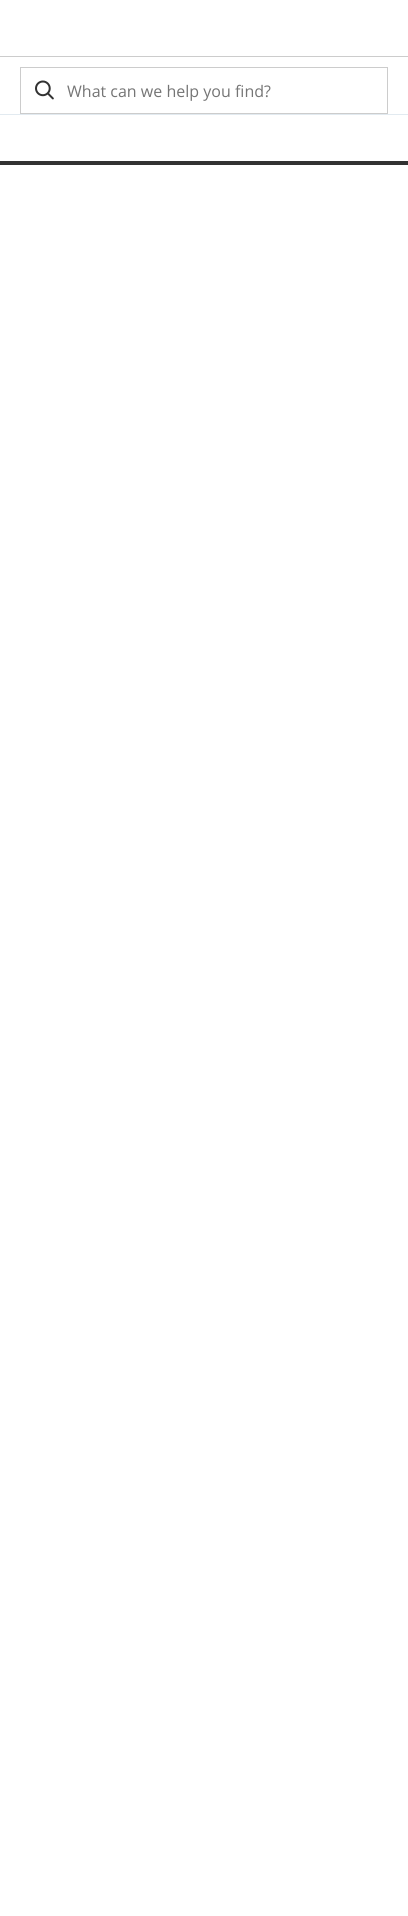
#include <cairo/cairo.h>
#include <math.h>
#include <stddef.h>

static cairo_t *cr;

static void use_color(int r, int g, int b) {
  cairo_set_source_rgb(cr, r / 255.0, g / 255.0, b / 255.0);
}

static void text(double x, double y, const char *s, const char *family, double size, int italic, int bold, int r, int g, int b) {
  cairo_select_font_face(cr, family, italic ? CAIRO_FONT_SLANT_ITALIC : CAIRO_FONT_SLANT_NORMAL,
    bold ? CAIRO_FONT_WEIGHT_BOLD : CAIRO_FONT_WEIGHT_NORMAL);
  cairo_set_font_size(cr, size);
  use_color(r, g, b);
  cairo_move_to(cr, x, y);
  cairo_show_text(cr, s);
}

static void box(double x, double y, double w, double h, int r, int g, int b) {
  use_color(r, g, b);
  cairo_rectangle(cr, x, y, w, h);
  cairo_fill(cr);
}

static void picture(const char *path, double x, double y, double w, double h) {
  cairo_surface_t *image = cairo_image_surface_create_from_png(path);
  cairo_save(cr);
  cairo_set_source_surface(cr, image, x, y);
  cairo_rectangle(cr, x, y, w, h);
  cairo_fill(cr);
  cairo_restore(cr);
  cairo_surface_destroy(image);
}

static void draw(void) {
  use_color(255, 255, 255);
  cairo_paint(cr);
  box(0, 56, 408, 1, 204, 204, 204);
  cairo_rectangle(cr, 20.5, 67.5, 367, 46);
  cairo_set_line_width(cr, 1);
  cairo_stroke(cr);
  picture("img_01.png", 35, 80, 19, 20);
  box(0, 114, 408, 1, 226, 234, 240);
  box(0, 161, 408, 4, 50, 50, 50);
  text(67, 97, "What can we help you find?", "Open Sans", 16, 0, 0, 117, 117, 117);
}

int main(void) {
  cairo_surface_t *surface = cairo_image_surface_create(CAIRO_FORMAT_RGB24, 408, 1916);
  cr = cairo_create(surface);
  cairo_font_options_t *options = cairo_font_options_create();
  cairo_font_options_set_hint_metrics(options, CAIRO_HINT_METRICS_OFF);
  cairo_font_options_set_hint_style(options, CAIRO_HINT_STYLE_NONE);
  cairo_set_font_options(cr, options);
  cairo_set_miter_limit(cr, 4);
  draw();
  cairo_surface_write_to_png(surface, "out.png");
  cairo_font_options_destroy(options);
  cairo_destroy(cr);
  cairo_surface_destroy(surface);
  return 0;
}
